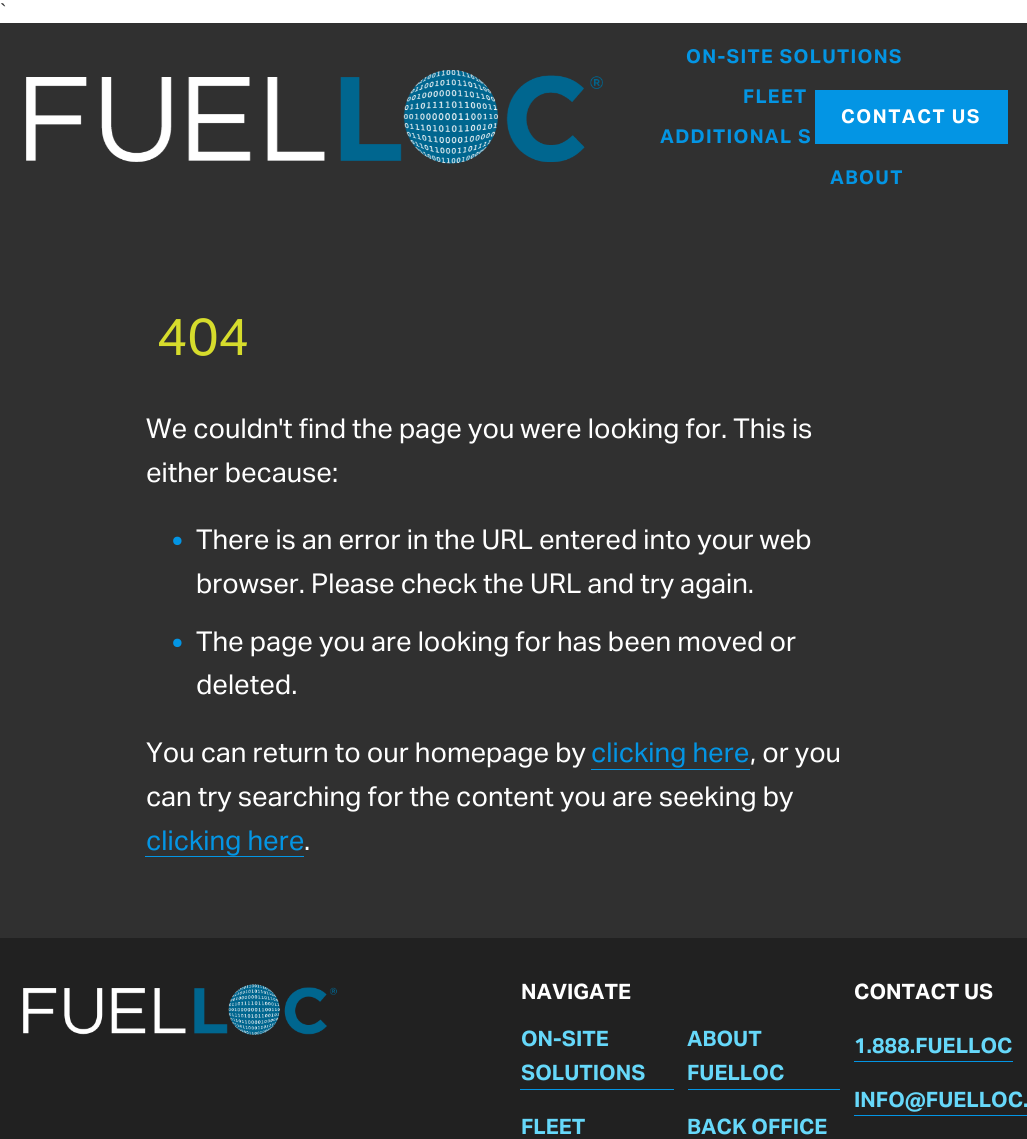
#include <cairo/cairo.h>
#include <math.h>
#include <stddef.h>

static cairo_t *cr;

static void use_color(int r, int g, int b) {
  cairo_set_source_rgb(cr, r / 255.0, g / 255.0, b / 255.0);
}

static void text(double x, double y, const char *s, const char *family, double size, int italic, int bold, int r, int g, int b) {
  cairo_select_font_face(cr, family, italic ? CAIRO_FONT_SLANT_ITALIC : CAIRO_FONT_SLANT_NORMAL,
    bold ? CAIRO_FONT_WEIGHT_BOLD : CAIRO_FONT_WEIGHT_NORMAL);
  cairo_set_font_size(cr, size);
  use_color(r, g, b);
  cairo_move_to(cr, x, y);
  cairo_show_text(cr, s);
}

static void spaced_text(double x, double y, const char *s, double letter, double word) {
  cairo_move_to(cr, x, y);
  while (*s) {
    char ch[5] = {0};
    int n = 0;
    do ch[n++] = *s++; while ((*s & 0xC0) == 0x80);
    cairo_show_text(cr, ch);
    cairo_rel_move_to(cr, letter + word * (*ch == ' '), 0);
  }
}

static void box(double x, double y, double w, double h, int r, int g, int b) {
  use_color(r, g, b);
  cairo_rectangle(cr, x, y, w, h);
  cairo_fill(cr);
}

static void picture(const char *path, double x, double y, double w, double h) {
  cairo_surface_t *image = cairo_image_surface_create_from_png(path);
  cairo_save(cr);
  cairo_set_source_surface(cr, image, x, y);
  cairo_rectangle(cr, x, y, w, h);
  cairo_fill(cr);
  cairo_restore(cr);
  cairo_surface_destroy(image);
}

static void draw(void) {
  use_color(255, 255, 255);
  cairo_paint(cr);
  box(0, 23, 1027, 915, 48, 48, 48);
  picture("img_01.png", 26, 70, 577, 94);
  box(815, 90, 193, 54, 3, 149, 228);
  box(591, 769, 159, 1, 3, 149, 228);
  box(145, 856, 159, 1, 3, 149, 228);
  box(0, 938, 1027, 201, 33, 33, 33);
  picture("img_02.png", 23, 984, 314, 51);
  box(854, 1061, 159, 1, 3, 149, 228);
  box(854, 1115, 173, 1, 3, 149, 228);
  box(520, 1089, 154, 1, 3, 149, 228);
  box(688, 1089, 152, 1, 3, 149, 228);
  text(0, 18, "`", "Liberation Sans", 20, 0, 0, 48, 48, 48);
  cairo_select_font_face(cr, "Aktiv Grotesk", CAIRO_FONT_SLANT_NORMAL, CAIRO_FONT_WEIGHT_BOLD);
  cairo_set_font_size(cr, 19.1);
  use_color(3, 149, 228);
  spaced_text(686, 63, "ON-SITE SOLUTIONS", 1.3, 0);
  spaced_text(743, 103, "FLEET", 1.3, 0);
  spaced_text(660, 143, "ADDITIONAL S", 1.3, 0);
  spaced_text(830, 184, "ABOUT", 1.3, 0);
  use_color(255, 255, 255);
  spaced_text(841, 123, "CONTACT US", 1.5, 0);
  text(157, 355, "404", "Aktiv Grotesk", 52, 0, 0, 214, 220, 44);
  text(146, 438, "We couldn't find the page you were looking for. This is", "Aktiv Grotesk", 27.4, 0, 0, 255, 255, 255);
  text(146, 482, "either because:", "Aktiv Grotesk", 27.4, 0, 0, 255, 255, 255);
  text(172, 549, "•", "Aktiv Grotesk", 27.4, 0, 1, 3, 149, 228);
  text(196, 549, "There is an error in the URL entered into your web", "Aktiv Grotesk", 27.4, 0, 0, 255, 255, 255);
  text(196, 593, "browser. Please check the URL and try again.", "Aktiv Grotesk", 27.4, 0, 0, 255, 255, 255);
  text(172, 651, "•", "Aktiv Grotesk", 27.4, 0, 1, 3, 149, 228);
  text(196, 651, "The page you are looking for has been moved or", "Aktiv Grotesk", 27.4, 0, 0, 255, 255, 255);
  text(196, 694, "deleted.", "Aktiv Grotesk", 27.4, 0, 0, 255, 255, 255);
  text(146, 762, "You can return to our homepage by", "Aktiv Grotesk", 27.4, 0, 0, 255, 255, 255);
  text(591, 762, "clicking here", "Aktiv Grotesk", 27.4, 0, 0, 3, 149, 228);
  text(750, 762, ", or you", "Aktiv Grotesk", 27.4, 0, 0, 255, 255, 255);
  text(146, 806, "can try searching for the content you are seeking by", "Aktiv Grotesk", 27.4, 0, 0, 255, 255, 255);
  text(146, 850, "clicking here", "Aktiv Grotesk", 27.4, 0, 0, 3, 149, 228);
  text(304, 850, ".", "Aktiv Grotesk", 27.4, 0, 0, 255, 255, 255);
  text(521, 999, "NAVIGATE", "Aktiv Grotesk", 21.25, 0, 1, 255, 255, 255);
  text(854, 999, "CONTACT US", "Aktiv Grotesk", 21.25, 0, 1, 255, 255, 255);
  text(854, 1053, "1.888.FUELLOC", "Aktiv Grotesk", 21.25, 0, 1, 102, 216, 250);
  text(854, 1107, "INFO@FUELLOC.", "Aktiv Grotesk", 21.25, 0, 1, 102, 216, 250);
  text(521, 1046, "ON-SITE", "Aktiv Grotesk", 21.25, 0, 1, 102, 216, 250);
  text(521, 1080, "SOLUTIONS", "Aktiv Grotesk", 21.25, 0, 1, 102, 216, 250);
  text(521, 1134, "FLEET", "Aktiv Grotesk", 21.25, 0, 1, 102, 216, 250);
  text(687, 1046, "ABOUT", "Aktiv Grotesk", 21.25, 0, 1, 102, 216, 250);
  text(687, 1080, "FUELLOC", "Aktiv Grotesk", 21.25, 0, 1, 102, 216, 250);
  text(687, 1134, "BACK OFFICE", "Aktiv Grotesk", 21.25, 0, 1, 102, 216, 250);
}

int main(void) {
  cairo_surface_t *surface = cairo_image_surface_create(CAIRO_FORMAT_RGB24, 1027, 1139);
  cr = cairo_create(surface);
  cairo_font_options_t *options = cairo_font_options_create();
  cairo_font_options_set_hint_metrics(options, CAIRO_HINT_METRICS_OFF);
  cairo_font_options_set_hint_style(options, CAIRO_HINT_STYLE_NONE);
  cairo_set_font_options(cr, options);
  cairo_set_miter_limit(cr, 4);
  draw();
  cairo_surface_write_to_png(surface, "out.png");
  cairo_font_options_destroy(options);
  cairo_destroy(cr);
  cairo_surface_destroy(surface);
  return 0;
}
